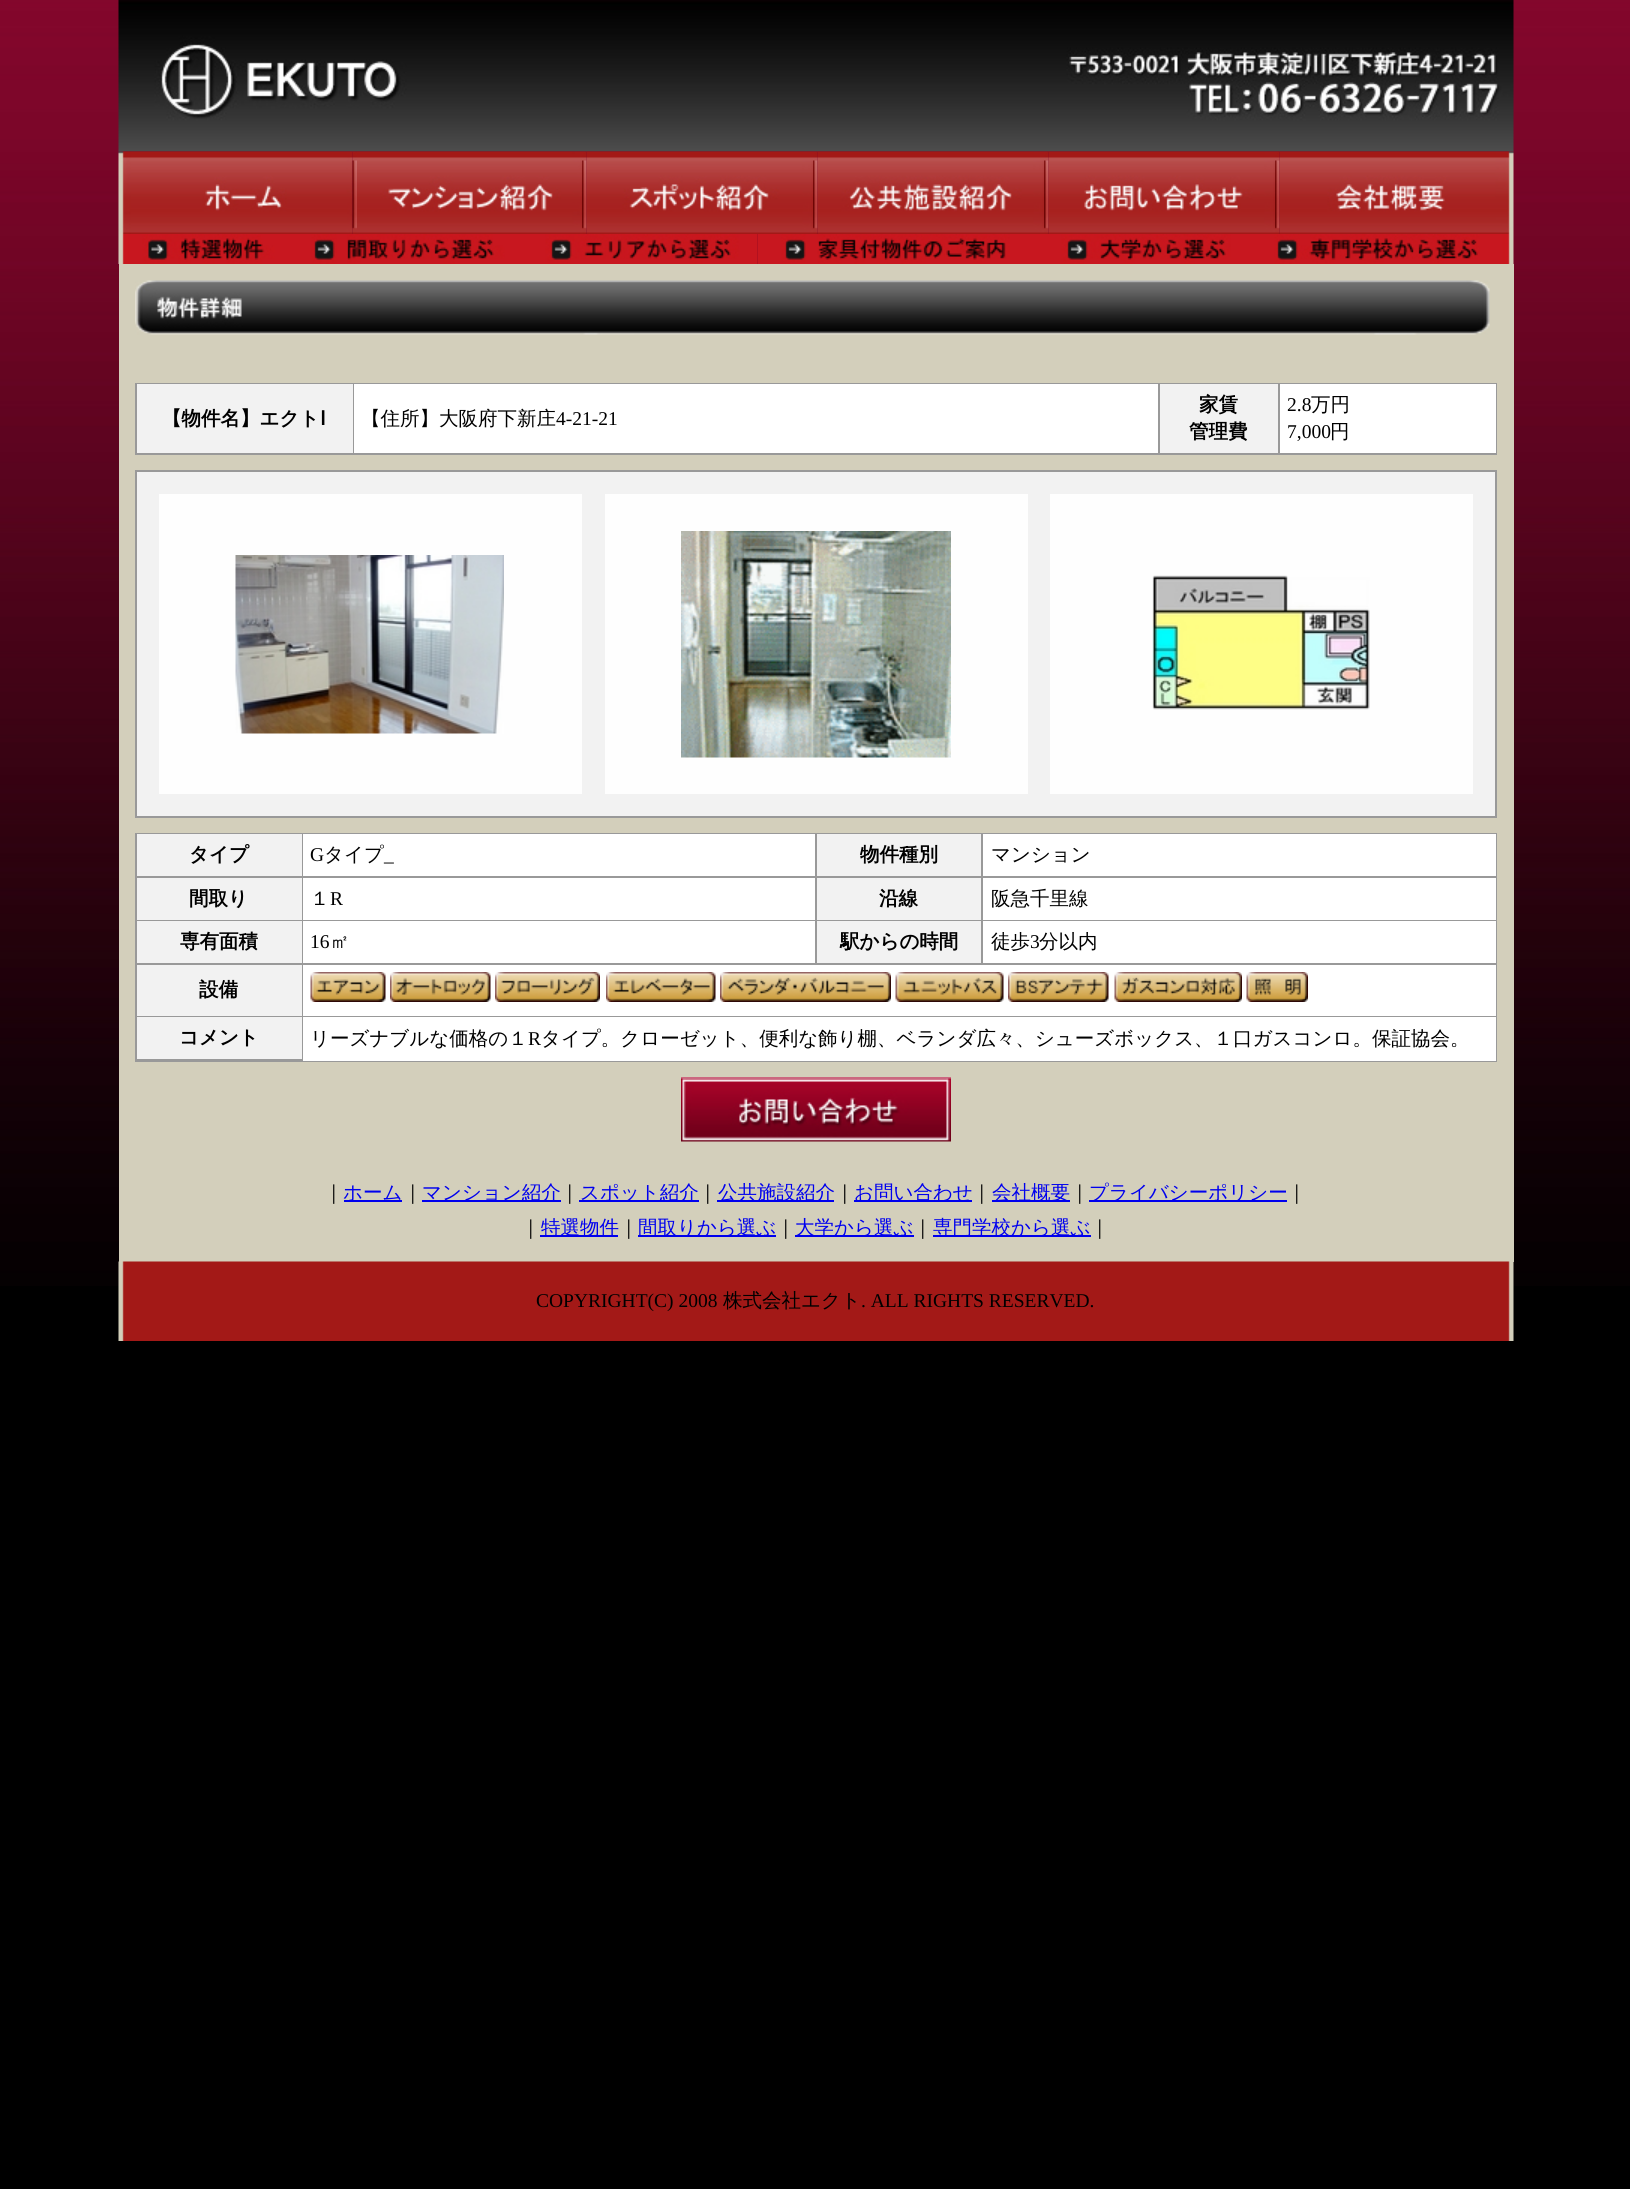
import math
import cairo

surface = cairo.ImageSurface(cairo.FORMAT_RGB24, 1630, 2189)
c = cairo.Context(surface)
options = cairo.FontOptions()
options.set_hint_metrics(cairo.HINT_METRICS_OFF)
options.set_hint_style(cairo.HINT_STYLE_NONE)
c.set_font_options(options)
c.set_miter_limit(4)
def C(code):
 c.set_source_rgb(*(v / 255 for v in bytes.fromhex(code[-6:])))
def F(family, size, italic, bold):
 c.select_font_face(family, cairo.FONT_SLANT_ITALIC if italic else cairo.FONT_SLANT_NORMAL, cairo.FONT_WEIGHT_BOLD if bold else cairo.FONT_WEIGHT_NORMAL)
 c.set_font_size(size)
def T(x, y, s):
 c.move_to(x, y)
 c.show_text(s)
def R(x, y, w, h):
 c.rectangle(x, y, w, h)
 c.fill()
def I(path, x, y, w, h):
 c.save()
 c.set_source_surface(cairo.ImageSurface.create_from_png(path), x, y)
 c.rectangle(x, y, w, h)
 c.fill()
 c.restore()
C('000000')
c.paint()
I('1.png',0,0,1630,1286)
I('2.png',118,0,1396,152)
I('3.png',118,151,235,83)
I('4.png',352,151,5,83)
I('5.png',357,151,225,83)
I('6.png',582,151,5,83)
I('7.png',586,151,227,83)
I('8.png',813,151,5,83)
I('9.png',817,151,227,83)
I('6.png',1044,151,5,83)
I('10.png',1048,151,227,83)
I('6.png',1275,151,5,83)
I('11.png',1279,151,235,83)
I('12.png',118,234,170,30)
I('13.png',288,234,234,30)
I('14.png',522,234,236,30)
I('15.png',757,234,281,30)
I('16.png',1038,234,213,30)
I('17.png',1251,234,263,30)
C('d3cfbb')
R(119,264,1395,998)
I('18.png',135,280,1355,55)
C('999999')
R(135,383,1362,72)
C('f2f2f2')
R(137,384,216,69)
F('WenQuanYi Zen Hei',19.5,0,1)
C('000000')
T(162,425,'【物件名】エクト')
F('DejaVu Sans',19.5,0,1)
T(320,425,'Ⅰ')
C('ffffff')
R(354,384,804,69)
F('WenQuanYi Zen Hei Medium',19.5,0,0)
C('000000')
T(361,425,'【住所】大阪府下新庄')
F('Liberation Serif',19.5,0,0)
T(556,425,'4-21-21')
C('f2f2f2')
R(1160,384,118,69)
F('WenQuanYi Zen Hei',19.5,0,1)
C('000000')
T(1199,411,'家賃')
T(1189,438,'管理費')
C('ffffff')
R(1280,384,216,69)
F('Liberation Serif',19.5,0,0)
C('000000')
T(1287,411,'2.8')
F('WenQuanYi Zen Hei Medium',19.5,0,0)
T(1311,411,'万円')
F('Liberation Serif',19.5,0,0)
T(1287,438,'7,000')
F('WenQuanYi Zen Hei Medium',19.5,0,0)
T(1330,438,'円')
C('f2f2f2')
c.rectangle(136,471,1360,346)
c.fill_preserve()
C('999999')
c.stroke()
C('fefefe')
R(159,494,423,300)
I('19.png',235,555,269,179)
R(605,494,423,300)
I('20.png',681,531,270,227)
R(1050,494,423,300)
I('21.png',1152,575,218,135)
C('999999')
R(135,833,1362,229)
C('f2f2f2')
R(137,834,165,42)
F('WenQuanYi Zen Hei',19.5,0,1)
C('000000')
T(189,861,'タイプ')
C('ffffff')
R(303,834,512,42)
F('Liberation Serif',19.5,0,0)
C('000000')
T(310,861,'G')
F('WenQuanYi Zen Hei Medium',19.5,0,0)
T(324,861,'タイプ')
F('Liberation Serif',19.5,0,0)
T(384,861,'_')
C('f2f2f2')
R(817,834,164,42)
F('WenQuanYi Zen Hei',19.5,0,1)
C('000000')
T(860,861,'物件種別')
C('ffffff')
R(983,834,513,42)
F('WenQuanYi Zen Hei Medium',19.5,0,0)
C('000000')
T(991,861,'マンション')
C('f2f2f2')
R(137,878,165,42)
F('WenQuanYi Zen Hei',19.5,0,1)
C('000000')
T(189,905,'間取り')
C('ffffff')
R(303,878,512,42)
F('WenQuanYi Zen Hei Medium',19.5,0,0)
C('000000')
T(310,905,'１')
F('Liberation Serif',19.5,0,0)
T(330,905,'R')
C('f2f2f2')
R(817,878,164,42)
F('WenQuanYi Zen Hei',19.5,0,1)
C('000000')
T(879,905,'沿線')
C('ffffff')
R(983,878,513,42)
F('WenQuanYi Zen Hei Medium',19.5,0,0)
C('000000')
T(991,905,'阪急千里線')
C('f2f2f2')
R(137,921,165,42)
F('WenQuanYi Zen Hei',19.5,0,1)
C('000000')
T(180,948,'専有面積')
C('ffffff')
R(303,921,512,42)
F('Liberation Serif',19.5,0,0)
C('000000')
T(310,948,'16')
F('WenQuanYi Zen Hei Medium',19.5,0,0)
T(330,948,'㎡')
C('f2f2f2')
R(817,921,164,42)
F('WenQuanYi Zen Hei',19.5,0,1)
C('000000')
T(840,948,'駅からの時間')
C('ffffff')
R(983,921,513,42)
F('WenQuanYi Zen Hei Medium',19.5,0,0)
C('000000')
T(991,948,'徒歩')
F('Liberation Serif',19.5,0,0)
T(1030,948,'3')
F('WenQuanYi Zen Hei Medium',19.5,0,0)
T(1039,948,'分以内')
C('f2f2f2')
R(137,965,165,51)
F('WenQuanYi Zen Hei',19.5,0,1)
C('000000')
T(199,996,'設備')
C('ffffff')
R(303,965,1193,51)
I('22.png',310,972,76,30)
I('23.png',390,972,101,30)
I('24.png',495,972,105,30)
I('25.png',606,972,110,30)
I('26.png',720,972,171,30)
I('27.png',895,972,109,30)
I('28.png',1008,972,101,30)
I('29.png',1114,972,128,30)
I('30.png',1246,972,62,30)
C('f2f2f2')
R(137,1017,165,42)
C('000000')
T(179,1044,'コメント')
C('ffffff')
R(303,1017,1193,44)
F('WenQuanYi Zen Hei Medium',19.5,0,0)
C('000000')
T(310,1045,'リーズナブルな価格の１')
F('Liberation Serif',19.5,0,0)
T(528,1045,'R')
F('WenQuanYi Zen Hei Medium',19.5,0,0)
T(541,1045,'タイプ。クローゼット、便利な飾り棚、ベランダ広々、シューズボックス、１口ガスコンロ。保証協会。')
I('31.png',681,1077,270,65)
T(324,1199,'｜')
C('0000ee')
R(344,1200,58,2)
T(343,1199,'ホーム')
C('000000')
T(403,1199,'｜')
C('0000ee')
R(422,1200,139,2)
T(422,1199,'マンション紹介')
C('000000')
T(560,1199,'｜')
C('0000ee')
R(579,1200,120,2)
T(580,1199,'スポット紹介')
C('000000')
T(698,1199,'｜')
C('0000ee')
R(717,1200,117,2)
T(718,1199,'公共施設紹介')
C('000000')
T(835,1199,'｜')
C('0000ee')
R(854,1200,118,2)
T(854,1199,'お問い合わせ')
C('000000')
T(972,1199,'｜')
C('0000ee')
R(992,1200,78,2)
T(992,1199,'会社概要')
C('000000')
T(1070,1199,'｜')
C('0000ee')
R(1089,1200,198,2)
T(1089,1199,'プライバシーポリシー')
C('000000')
T(1287,1199,'｜')
T(521,1234,'｜')
C('0000ee')
R(540,1235,78,2)
T(541,1234,'特選物件')
C('000000')
T(619,1234,'｜')
C('0000ee')
R(638,1235,138,2)
T(638,1234,'間取りから選ぶ')
C('000000')
T(776,1234,'｜')
C('0000ee')
R(795,1235,119,2)
T(795,1234,'大学から選ぶ')
C('000000')
T(913,1234,'｜')
C('0000ee')
R(933,1235,158,2)
T(933,1234,'専門学校から選ぶ')
C('000000')
T(1090,1234,'｜')
I('32.png',118,1261,1396,80)
F('Liberation Serif',19.5,0,0)
T(536,1307,'COPYRIGHT(C) 2008')
F('WenQuanYi Zen Hei Medium',19.5,0,0)
T(723,1307,'株式会社エクト')
F('Liberation Serif',19.5,0,0)
T(861,1307,'. ALL RIGHTS RESERVED.')
surface.write_to_png('o.png')
